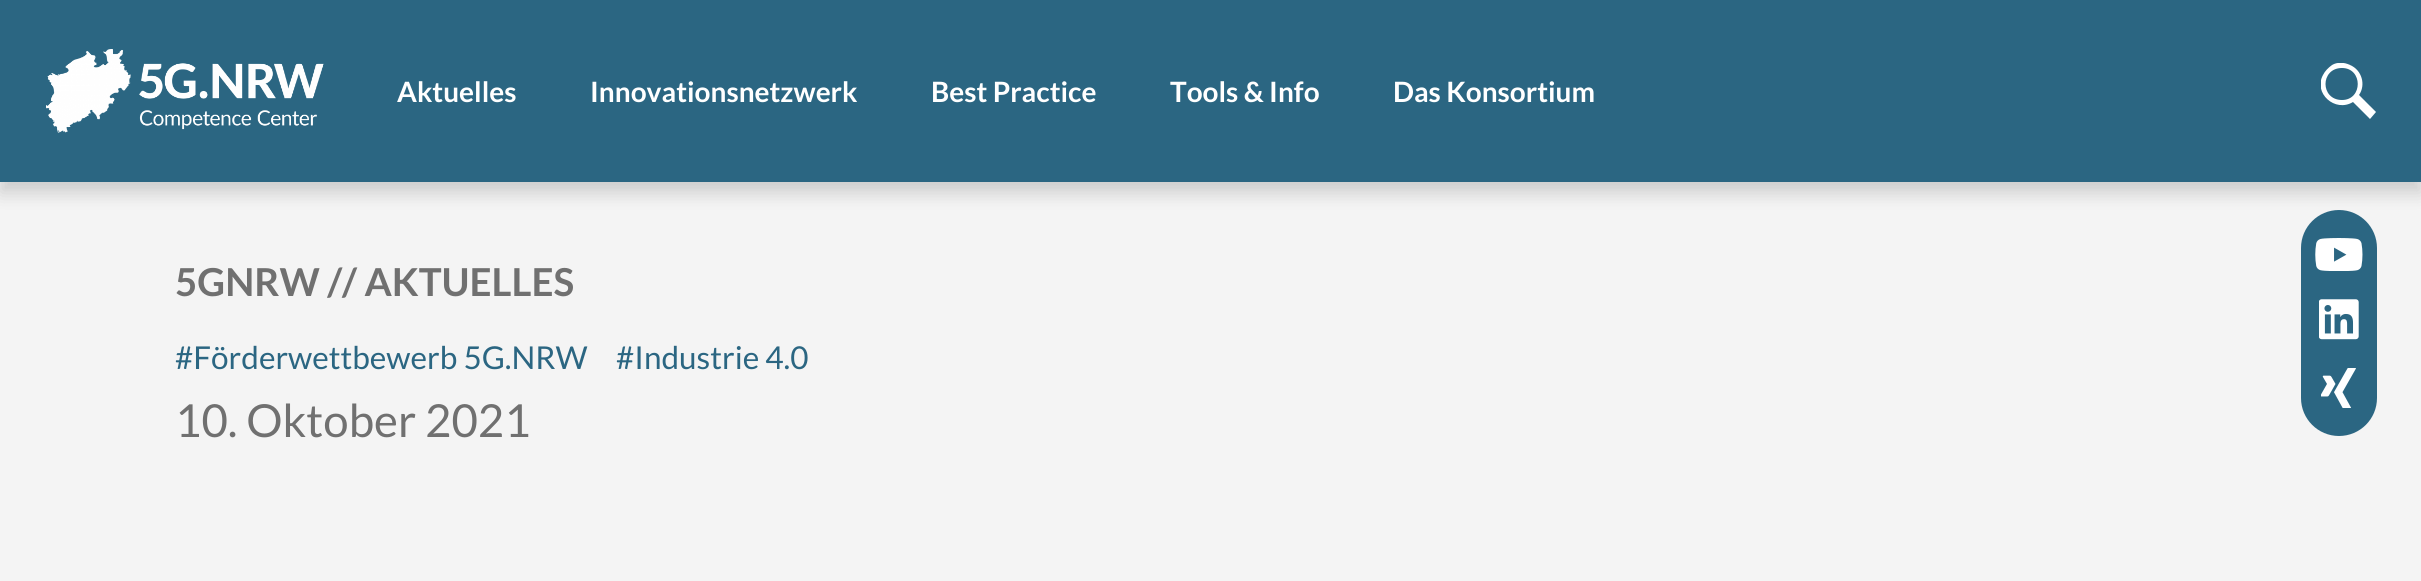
import math
import cairo

surface = cairo.ImageSurface(cairo.FORMAT_RGB24, 2421, 581)
c = cairo.Context(surface)
options = cairo.FontOptions()
options.set_hint_metrics(cairo.HINT_METRICS_OFF)
options.set_hint_style(cairo.HINT_STYLE_NONE)
c.set_font_options(options)
c.set_miter_limit(4)
def C(code):
 c.set_source_rgb(*(v / 255 for v in bytes.fromhex(code[-6:])))
def F(family, size, italic, bold):
 c.select_font_face(family, cairo.FONT_SLANT_ITALIC if italic else cairo.FONT_SLANT_NORMAL, cairo.FONT_WEIGHT_BOLD if bold else cairo.FONT_WEIGHT_NORMAL)
 c.set_font_size(size)
def T(x, y, s):
 c.move_to(x, y)
 c.show_text(s)
def R(x, y, w, h):
 c.rectangle(x, y, w, h)
 c.fill()
def Q(x, y, w, h, r):
 c.new_sub_path()
 for i, (u, v) in enumerate([(x + w - r, y + h - r), (x + r, y + h - r), (x + r, y + r), (x + w - r, y + r)]):
  c.arc(u, v, r, i * math.pi / 2, (i + 1) * math.pi / 2)
 c.close_path()
def S(x, y, w, h, r, blur, alpha):
 c.push_group_with_content(cairo.CONTENT_ALPHA)
 c.set_operator(cairo.OPERATOR_SOURCE)
 for i in range(15, -16, -2):
  e = blur * i / 6
  if min(w, h) + 2 * e > 0:
   c.set_source_rgba(0, 0, 0, alpha * math.erfc((i - 1) / 8.5) / 2)
   Q(x - e, y - e, w + 2 * e, h + 2 * e, max(0, min(r + e + blur * .6, min(w, h) / 2 + e)))
   c.fill()
 c.mask(c.pop_group())
def I(path, x, y, w, h):
 c.save()
 c.set_source_surface(cairo.ImageSurface.create_from_png(path), x, y)
 c.rectangle(x, y, w, h)
 c.fill()
 c.restore()
C('f4f4f4')
c.paint()
C('000000')
S(0,11,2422,182,0,9,.16)
C('2b6682')
R(0,0,2421,182)
I('1.png',46,49,278,84)
F('Lato',28,0,1)
C('ffffff')
T(397,102,'Aktuelles')
T(590,102,'Innovationsnetzwerk')
T(931,102,'Best Practice')
T(1170,102,'Tools & Info')
T(1393,102,'Das Konsortium')
c.save()
c.rectangle(2321,63,56,56)
c.clip()
c.new_path()
c.move_to(2370,119)
c.line_to(2353,102)
c.curve_to(2335,113,2313,93,2323,75)
c.curve_to(2325,71,2328,68,2332,65)
c.curve_to(2337,62,2344,62,2350,65)
c.curve_to(2362,70,2366,85,2359,95)
c.line_to(2376,112)
c.close_path()
c.move_to(2342,100)
c.curve_to(2363,100,2363,68,2342,68)
c.curve_to(2320,68,2320,100,2342,100)
c.fill()
c.restore()
C('2b6682')
Q(2301,210,76,226,38)
c.fill()
I('2.png',2315,238,48,33)
I('3.png',2319,299,40,41)
I('4.png',2321,368,35,40)
F('Lato',38.5,0,1)
C('707070')
T(175,296,'5GNRW // AKTUELLES')
F('Lato',31.5,0,0)
C('2b6682')
T(175,369,'#Förderwettbewerb 5G.NRW')
T(616,369,'#Industrie 4.0')
F('Lato',45.5,0,0)
C('707070')
T(175,437,'10. Oktober 2021')
surface.write_to_png('o.png')
